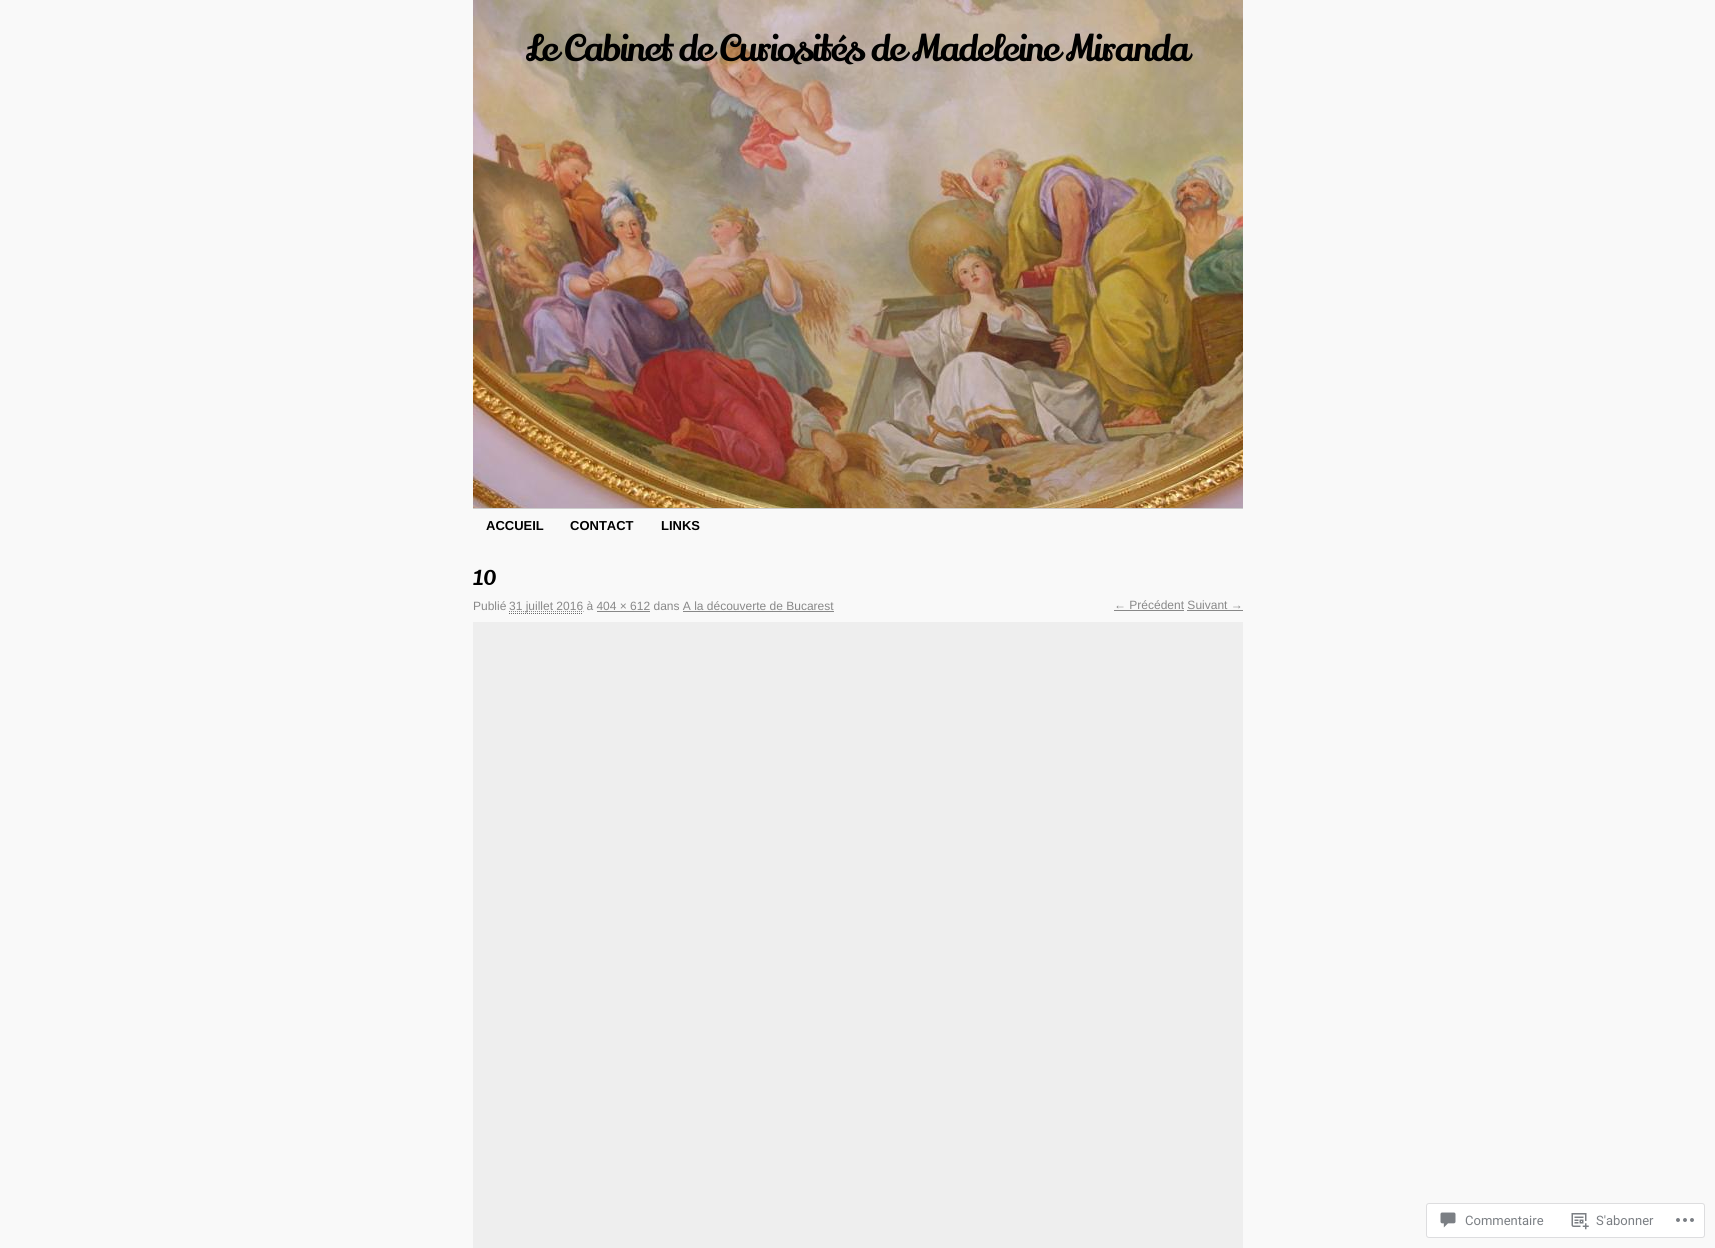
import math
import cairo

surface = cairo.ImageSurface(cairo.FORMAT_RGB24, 1715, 1248)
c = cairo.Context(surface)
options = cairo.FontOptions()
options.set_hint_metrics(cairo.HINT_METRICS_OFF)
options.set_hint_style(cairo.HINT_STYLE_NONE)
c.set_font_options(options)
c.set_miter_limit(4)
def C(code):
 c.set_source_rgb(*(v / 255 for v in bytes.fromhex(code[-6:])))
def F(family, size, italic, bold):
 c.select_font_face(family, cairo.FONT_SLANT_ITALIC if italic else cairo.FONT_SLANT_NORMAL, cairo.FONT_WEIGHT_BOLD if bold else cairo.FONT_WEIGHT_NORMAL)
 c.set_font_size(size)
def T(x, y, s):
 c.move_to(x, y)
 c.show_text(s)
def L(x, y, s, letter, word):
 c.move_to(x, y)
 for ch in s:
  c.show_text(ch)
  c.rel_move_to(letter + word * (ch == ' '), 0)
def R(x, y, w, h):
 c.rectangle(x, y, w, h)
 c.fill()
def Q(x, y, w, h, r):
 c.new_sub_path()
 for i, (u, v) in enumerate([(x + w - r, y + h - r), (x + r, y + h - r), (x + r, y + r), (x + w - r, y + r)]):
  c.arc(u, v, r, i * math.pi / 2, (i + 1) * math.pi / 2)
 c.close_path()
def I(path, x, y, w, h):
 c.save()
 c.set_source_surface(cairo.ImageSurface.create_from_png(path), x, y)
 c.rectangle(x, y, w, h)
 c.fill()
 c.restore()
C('f9f9f9')
c.paint()
I('1.png',473,0,770,508)
F('Lily Script One',36,0,0)
C('000000')
L(526,61,'Le Cabinet de Curiosités de Madeleine Miranda',-1.1,0)
C('cccccc')
R(473,508,770,1)
F('Liberation Sans',13,0,1)
C('000000')
T(486,530,'ACCUEIL')
T(570,530,'CONTACT')
T(661,530,'LINKS')
F('Lily Script One',20,0,0)
T(473,585,'10')
F('Liberation Sans',12,0,0)
C('888888')
T(473,610,'Publié')
c.new_path()
c.move_to(509,611.5)
c.line_to(583.5,611.5)
c.set_line_width(1)
c.set_dash([1,1])
c.stroke()
T(509,610,'31 juillet 2016 à 404 × 612 dans A la découverte de Bucarest')
c.new_path()
c.move_to(509,613.5)
c.line_to(583,613.5)
C('666666')
c.stroke()
C('888888')
R(597,611,53,1)
R(683,611,151,1)
T(1114,609,'← Précédent Suivant →')
R(1114,610,70,1)
R(1187,610,56,1)
C('eeeeee')
R(473,622,770,626)
C('ffffff')
Q(1426.5,1203.5,278,34,2.5)
c.fill_preserve()
C('dddddf')
c.set_dash([])
c.stroke()
I('2.png',1440,1212,16,16)
F('Roboto',13,0,0)
C('7b7f84')
T(1465,1225,'Commentaire')
I('3.png',1571,1213,18,17)
T(1596,1225,'S\'abonner')
I('4.png',1676,1218,18,4)
surface.write_to_png('o.png')
